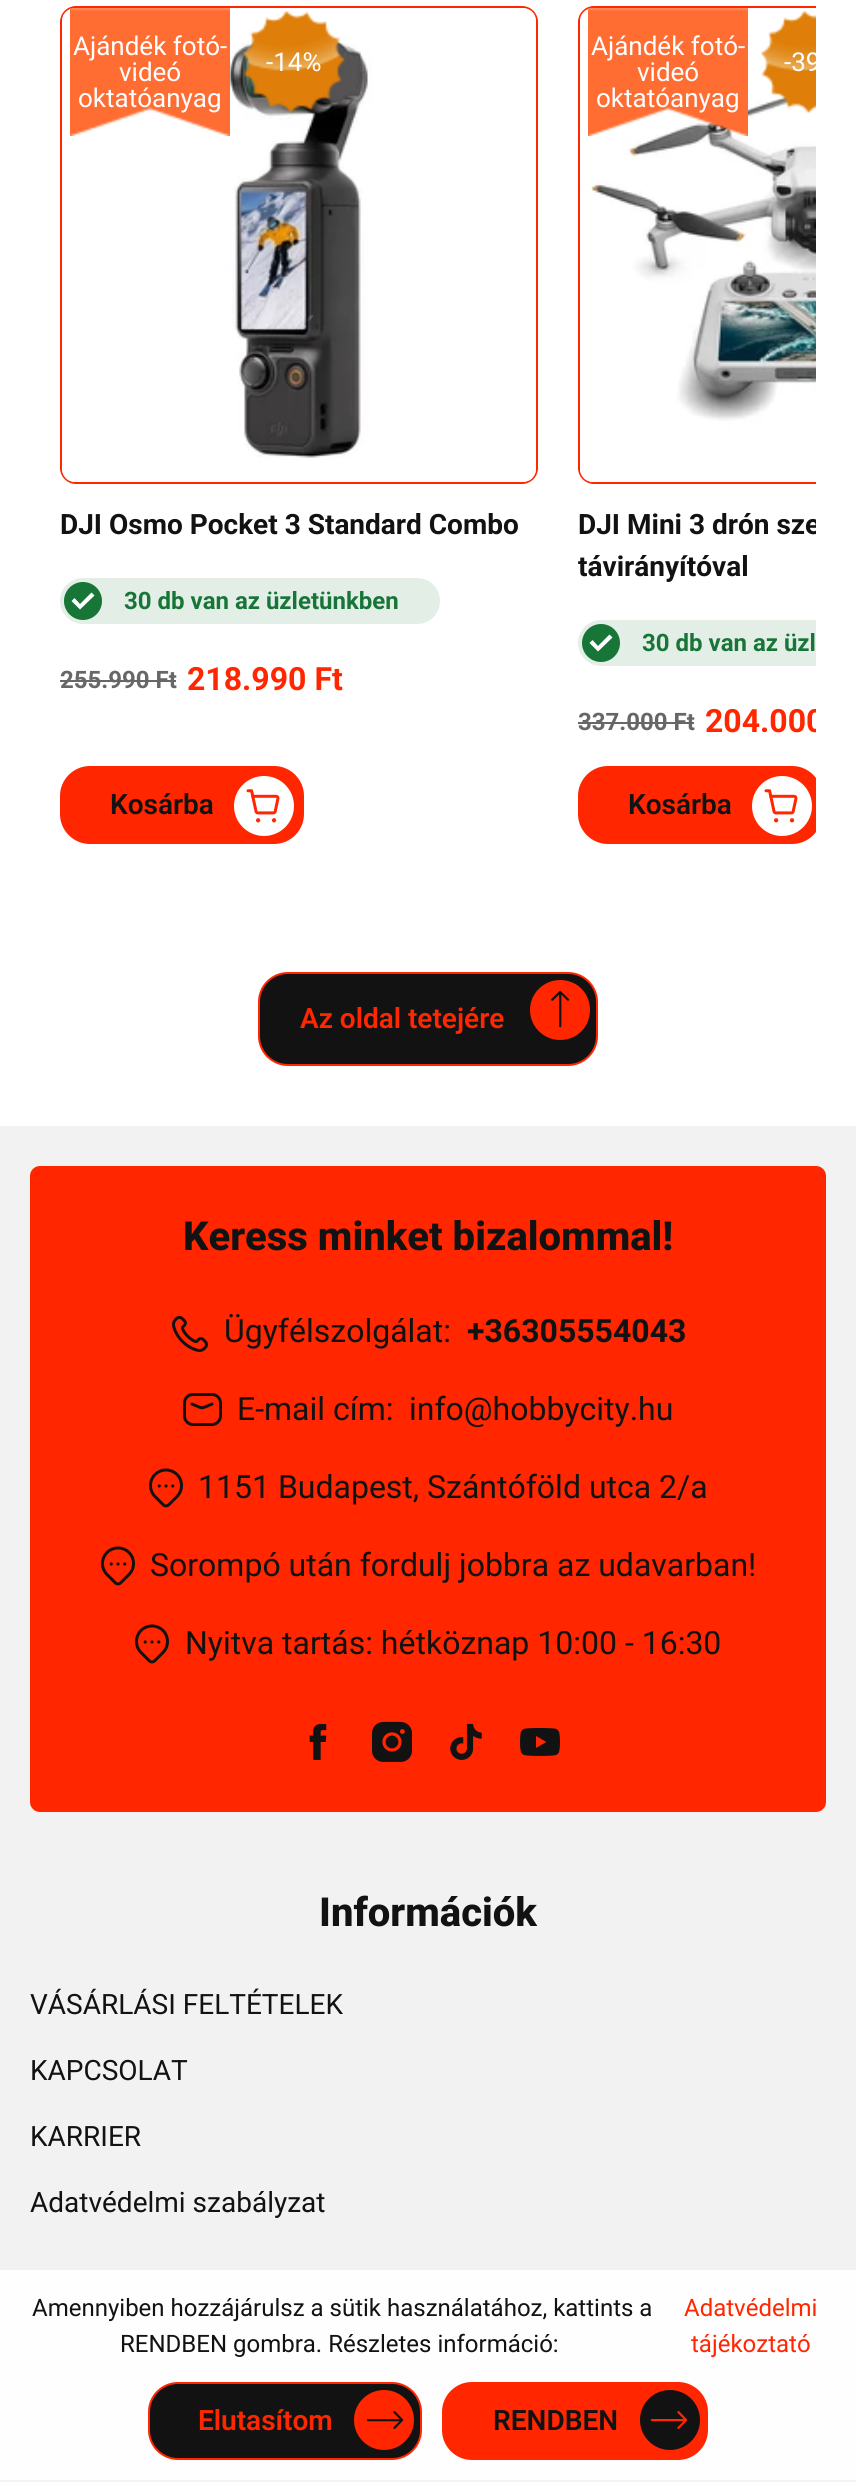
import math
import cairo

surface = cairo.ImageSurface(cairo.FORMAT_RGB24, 856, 2482)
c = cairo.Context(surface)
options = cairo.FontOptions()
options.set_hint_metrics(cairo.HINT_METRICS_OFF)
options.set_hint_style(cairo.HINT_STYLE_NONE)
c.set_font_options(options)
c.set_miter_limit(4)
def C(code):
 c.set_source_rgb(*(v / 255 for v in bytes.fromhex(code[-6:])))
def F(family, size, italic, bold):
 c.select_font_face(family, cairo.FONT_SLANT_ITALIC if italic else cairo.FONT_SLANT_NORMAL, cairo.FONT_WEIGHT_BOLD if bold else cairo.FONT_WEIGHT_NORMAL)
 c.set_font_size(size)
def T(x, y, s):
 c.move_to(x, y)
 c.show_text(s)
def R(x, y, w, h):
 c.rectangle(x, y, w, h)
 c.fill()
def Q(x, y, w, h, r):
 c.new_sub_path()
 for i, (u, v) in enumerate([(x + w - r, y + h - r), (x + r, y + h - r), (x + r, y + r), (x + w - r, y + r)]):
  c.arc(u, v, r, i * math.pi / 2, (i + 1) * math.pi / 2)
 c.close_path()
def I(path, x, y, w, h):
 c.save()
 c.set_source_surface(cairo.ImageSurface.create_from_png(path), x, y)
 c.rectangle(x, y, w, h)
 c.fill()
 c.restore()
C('ffffff')
c.paint()
Q(61,7,476,476,15)
C('ff2600')
c.stroke()
I('1.png',62,8,474,474)
I('2.png',70,8,160,128)
F('Roboto',26,0,0)
C('ffffff')
T(73,55,'Ajándék fotó-')
T(119,81,'videó')
T(78,107,'oktatóanyag')
I('3.png',243,10,103,104)
T(266,71,'-14%')
F('Roboto',28,0,1)
C('121212')
T(60,534,'DJI Osmo Pocket 3 Standard Combo')
C('e2eee6')
Q(60,578,380,46,23)
c.fill()
C('177537')
c.arc(83,601,19,0,2 * math.pi)
c.fill()
C('ffffff')
c.new_path()
c.move_to(80,604)
c.line_to(74.5,598)
c.line_to(71.5,601)
c.line_to(80,609.5)
c.line_to(94.5,595.5)
c.line_to(91.5,592.5)
c.close_path()
c.fill()
F('Roboto',24,0,1)
C('177537')
T(124,609,'30 db van az üzletünkben')
C('676767')
T(60,688,'255.990 Ft')
R(60,680,116,2)
F('Roboto',32,0,1)
C('ff2600')
T(187,690,'218.990 Ft')
Q(61,767,242,76,29)
c.fill_preserve()
c.stroke()
F('Roboto SemiBold',28,0,0)
C('121212')
T(110,814,'Kosárba')
I('4.png',234,776,60,60)
c.save()
c.rectangle(40,0,776,852)
c.clip()
Q(579,7,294,476,15)
C('ff2600')
c.stroke()
c.restore()
I('5.png',580,8,236,474)
I('6.png',588,8,160,128)
F('Roboto',26,0,0)
C('ffffff')
T(591,55,'Ajándék fotó-')
T(637,81,'videó')
T(596,107,'oktatóanyag')
I('7.png',760,10,56,104)
c.save()
c.rectangle(40,0,776,852)
c.clip()
T(784,71,'-39')
F('Roboto',28,0,1)
C('121212')
T(578,534,'DJI Mini 3 drón sze')
c.restore()
F('Roboto',28,0,1)
C('121212')
T(578,576,'távirányítóval')
C('e2eee6')
c.new_path()
c.move_to(601,620)
c.line_to(816,620)
c.line_to(816,666)
c.line_to(601,666)
c.curve_to(588.5,666,578,655.5,578,643)
c.curve_to(578,630.5,588.5,620,601,620)
c.close_path()
c.fill()
C('177537')
c.arc(601,643,19,0,2 * math.pi)
c.fill()
C('ffffff')
c.new_path()
c.move_to(598,646)
c.line_to(592.5,640)
c.line_to(589.5,643)
c.line_to(598,651.5)
c.line_to(612.5,637.5)
c.line_to(609.5,634.5)
c.close_path()
c.fill()
F('Roboto',24,0,1)
C('177537')
T(642,651,'30 db van az üzl')
C('676767')
T(578,730,'337.000 Ft')
R(578,722,116,2)
c.save()
c.rectangle(40,0,776,852)
c.clip()
F('Roboto',32,0,1)
C('ff2600')
T(705,732,'204.000')
Q(579,767,242,76,29)
c.fill_preserve()
c.stroke()
c.restore()
F('Roboto SemiBold',28,0,0)
C('121212')
T(628,814,'Kosárba')
I('4.png',752,776,60,60)
Q(259,973,338,92,29)
c.fill_preserve()
C('ff2600')
c.stroke()
T(300,1028,'Az oldal tetejére')
c.new_path()
c.move_to(530,1010)
c.curve_to(530,993,544,980,560,980)
c.curve_to(577,980,590,993,590,1010)
c.curve_to(590,1027,577,1040,560,1040)
c.curve_to(544,1040,530,1027,530,1010)
c.close_path()
c.fill()
I('8.png',551,991,19,37)
C('f2f2f2')
R(0,1126,856,1354)
C('ff2600')
Q(30,1166,796,646,10)
c.fill()
F('Roboto ExtraBold',40,0,0)
C('121212')
T(183,1250,'Keress minket bizalommal!')
I('9.png',172,1315,36,37)
F('Roboto',32,0,0)
T(224,1342,'Ügyfélszolgálat:')
F('Roboto',32,0,1)
T(467,1342,'+36305554043')
Q(184.5,1394.5,36,30,8.5)
c.set_line_width(3)
c.stroke()
c.new_path()
c.move_to(192,1404)
c.curve_to(204,1409,200,1409,212,1404)
c.set_line_cap(cairo.LINE_CAP_ROUND)
c.set_line_join(cairo.LINE_JOIN_ROUND)
c.stroke()
F('Roboto',32,0,0)
T(237,1420,'E-mail cím:')
T(409,1420,'info@hobbycity.hu')
I('10.png',148,1468,35,40)
T(198,1498,'1151 Budapest, Szántóföld utca 2/a')
I('10.png',100,1546,35,40)
T(150,1576,'Sorompó után fordulj jobbra az udavarban!')
I('10.png',134,1624,35,40)
T(185,1654,'Nyitva tartás: hétköznap 10:00 - 16:30')
I('11.png',309,1723,18,37)
I('12.png',372,1721,40,41)
I('13.png',450,1723,32,37)
I('14.png',520,1727,40,29)
F('Roboto ExtraBold',40,0,0)
T(319,1926,'Információk')
F('Roboto',28,0,0)
T(30,2014,'VÁSÁRLÁSI FELTÉTELEK')
T(30,2080,'KAPCSOLAT')
T(30,2146,'KARRIER')
T(30,2212,'Adatvédelmi szabályzat')
c.set_source_rgba(1,1,1,0.9)
R(0,2270,856,210)
C('f3f3f3')
R(0,2480,856,2)
F('Roboto',24,0,0)
C('121212')
T(32,2316,'Amennyiben hozzájárulsz a sütik használatához, kattints a')
C('ff2600')
T(684,2316,'Adatvédelmi')
T(691,2352,'tájékoztató')
C('121212')
T(120,2352,'RENDBEN gombra. Részletes információ:')
Q(149,2383,272,76,29)
c.fill_preserve()
C('ff2600')
c.set_line_width(2)
c.set_line_cap(cairo.LINE_CAP_BUTT)
c.set_line_join(cairo.LINE_JOIN_MITER)
c.stroke()
F('Roboto SemiBold',28,0,0)
T(198,2430,'Elutasítom')
c.new_path()
c.arc(384,2420,30,0,2 * math.pi)
c.fill()
I('15.png',366,2411,38,18)
Q(443,2383,264,76,29)
c.fill_preserve()
c.stroke()
C('121212')
T(493,2430,'RENDBEN')
c.new_path()
c.arc(670,2420,30,0,2 * math.pi)
c.fill()
I('16.png',650,2411,38,18)
surface.write_to_png('o.png')
